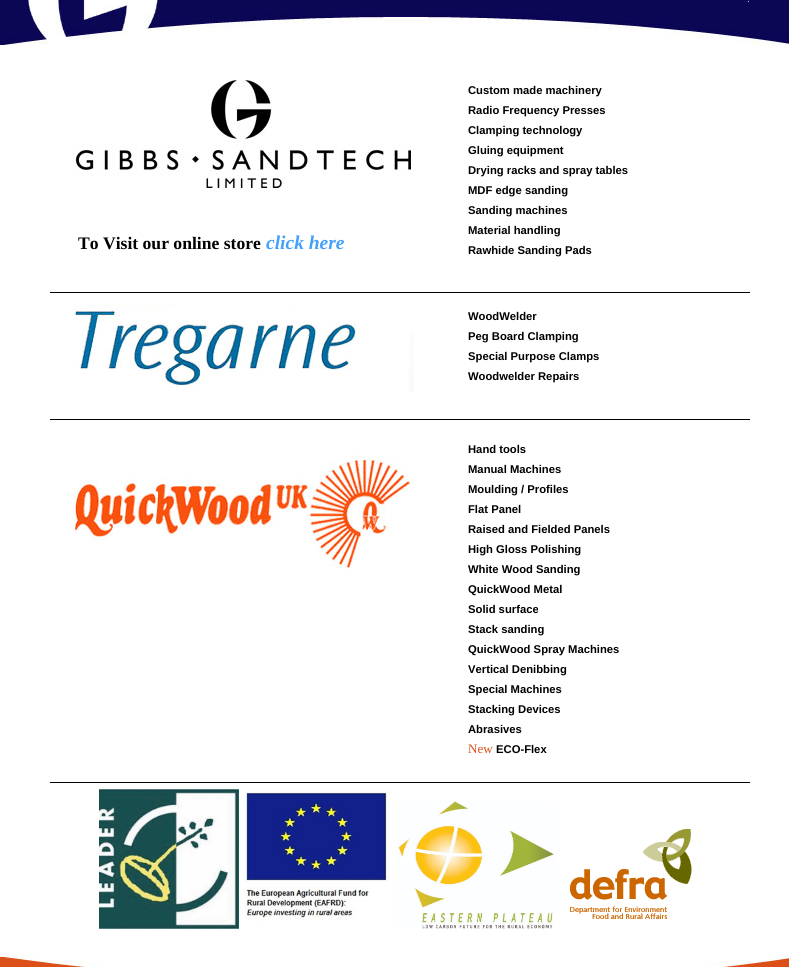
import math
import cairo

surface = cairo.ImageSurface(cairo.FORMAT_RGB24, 789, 967)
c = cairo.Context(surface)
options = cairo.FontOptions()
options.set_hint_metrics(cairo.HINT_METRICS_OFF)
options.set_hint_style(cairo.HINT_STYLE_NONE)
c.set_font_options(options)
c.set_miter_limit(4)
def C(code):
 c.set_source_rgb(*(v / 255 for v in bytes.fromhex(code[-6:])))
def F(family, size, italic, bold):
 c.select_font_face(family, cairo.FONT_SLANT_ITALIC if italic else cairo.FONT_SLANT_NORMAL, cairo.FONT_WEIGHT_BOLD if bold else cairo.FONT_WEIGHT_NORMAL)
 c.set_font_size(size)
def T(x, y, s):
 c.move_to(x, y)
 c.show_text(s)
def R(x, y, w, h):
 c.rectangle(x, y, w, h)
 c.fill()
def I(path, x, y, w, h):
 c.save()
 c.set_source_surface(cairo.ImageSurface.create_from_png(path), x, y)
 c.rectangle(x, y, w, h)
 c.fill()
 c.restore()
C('ffffff')
c.paint()
I('1.png',0,0,789,49)
F('Liberation Sans',10,0,0)
C('d9d9d9')
T(747,2,'.')
I('2.png',74,80,337,112)
F('Liberation Serif',17.6,0,1)
C('000000')
T(78,249,'To Visit our online store')
F('Liberation Serif',19.5,1,1)
C('44a0fa')
T(266,249,'click here')
F('Liberation Sans',11.25,0,1)
C('000000')
T(468,94,'Custom made machinery')
T(468,114,'Radio Frequency Presses')
T(468,134,'Clamping technology')
T(468,154,'Gluing equipment')
T(468,174,'Drying racks and spray tables')
T(468,194,'MDF edge sanding')
T(468,214,'Sanding machines')
T(468,234,'Material handling')
T(468,254,'Rawhide Sanding Pads')
R(50,292,700,1)
I('3.png',73,303,341,89)
T(468,320,'WoodWelder')
T(468,340,'Peg Board Clamping')
T(468,360,'Special Purpose Clamps')
T(468,380,'Woodwelder Repairs')
R(50,419,700,1)
I('4.png',73,455,341,120)
T(468,453,'Hand tools')
T(468,473,'Manual Machines')
T(468,493,'Moulding / Profiles')
T(468,513,'Flat Panel')
T(468,533,'Raised and Fielded Panels')
T(468,553,'High Gloss Polishing')
T(468,573,'White Wood Sanding')
T(468,593,'QuickWood Metal')
T(468,613,'Solid surface')
T(468,633,'Stack sanding')
T(468,653,'QuickWood Spray Machines')
T(468,673,'Vertical Denibbing')
T(468,693,'Special Machines')
T(468,713,'Stacking Devices')
T(468,733,'Abrasives')
F('Liberation Serif',13,0,0)
C('db4f18')
T(468,753,'New')
F('Liberation Sans',11.25,0,1)
C('000000')
T(496,753,'ECO-Flex')
R(50,782,700,1)
I('5.png',99,789,140,140)
I('6.png',244,789,146,132)
I('7.png',397,801,158,128)
I('8.png',570,829,122,90)
I('9.png',0,953,789,14)
surface.write_to_png('o.png')
